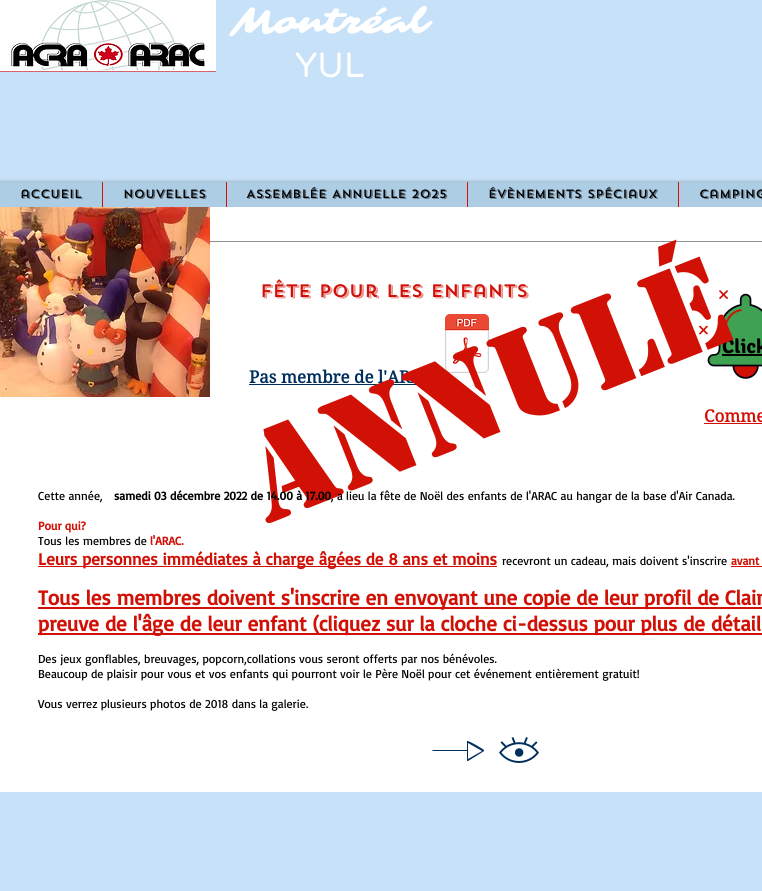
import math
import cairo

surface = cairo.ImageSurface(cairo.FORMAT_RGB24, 762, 891)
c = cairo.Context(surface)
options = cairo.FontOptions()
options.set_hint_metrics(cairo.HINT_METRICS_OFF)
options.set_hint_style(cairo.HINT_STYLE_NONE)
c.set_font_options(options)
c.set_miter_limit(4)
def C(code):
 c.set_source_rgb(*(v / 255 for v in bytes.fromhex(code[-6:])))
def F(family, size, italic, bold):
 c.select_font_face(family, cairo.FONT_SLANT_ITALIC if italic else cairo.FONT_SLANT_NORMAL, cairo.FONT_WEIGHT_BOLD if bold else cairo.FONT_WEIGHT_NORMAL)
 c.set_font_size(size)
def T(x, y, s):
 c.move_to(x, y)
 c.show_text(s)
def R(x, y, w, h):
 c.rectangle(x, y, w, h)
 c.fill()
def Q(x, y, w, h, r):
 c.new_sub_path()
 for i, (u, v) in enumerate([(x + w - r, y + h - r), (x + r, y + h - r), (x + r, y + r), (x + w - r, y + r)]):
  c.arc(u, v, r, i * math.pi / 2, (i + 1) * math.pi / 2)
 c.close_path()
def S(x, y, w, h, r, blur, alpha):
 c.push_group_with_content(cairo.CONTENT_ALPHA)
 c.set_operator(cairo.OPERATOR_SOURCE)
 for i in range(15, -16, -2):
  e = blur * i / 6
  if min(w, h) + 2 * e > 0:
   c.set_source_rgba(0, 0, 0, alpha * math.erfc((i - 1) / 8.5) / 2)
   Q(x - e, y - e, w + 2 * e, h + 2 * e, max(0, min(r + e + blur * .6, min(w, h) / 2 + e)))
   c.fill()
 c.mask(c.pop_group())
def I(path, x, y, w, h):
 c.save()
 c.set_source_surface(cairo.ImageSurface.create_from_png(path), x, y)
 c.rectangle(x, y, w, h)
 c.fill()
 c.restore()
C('c7e2f8')
c.paint()
I('1.png',0,0,216,72)
F('Sarina',35,0,0)
C('ffffff')
T(231,33,'Montréal')
F('Varela Round',35,0,0)
T(295,77,'YUL')
C('000000')
S(0,183,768,25,0,2,.6)
C('adcde5')
R(0,182,762,25)
F('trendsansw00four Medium',12,0,0)
C('000000')
T(20,198,'accueil')
C('d11006')
R(102,182,1,25)
C('000000')
T(123,198,'Nouvelles')
C('d11006')
R(226,182,1,25)
C('000000')
T(246,198,'Assemblée Annuelle 2025')
C('d11006')
R(467,182,1,25)
C('000000')
T(488,198,'Évènements spéciaux')
C('d11006')
R(678,182,1,25)
C('000000')
T(699,198,'camping')
C('ffffff')
R(0,207,762,585)
I('2.png',0,207,210,190)
C('909090')
R(210,241,552,1)
F('trendsansw00four Medium',18,0,0)
C('d11006')
T(260,297,'Fête pour les enfants')
I('3.png',699,290,63,89)
I('4.png',445,314,44,59)
F('Signika',20,0,1)
C('000000')
T(722,353,'Click')
R(722,354,40,2)
F('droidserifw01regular',17,0,1)
C('002e5d')
T(249,383,'Pas membre de l\'ARAC?')
R(249,384,192,1)
C('d11006')
T(704,422,'Comme')
R(704,423,58,1)
F('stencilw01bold',120,0,1)
c.save()
c.translate(268,524)
c.rotate(-21.6 * math.pi / 180)
T(0,0,'Annulé')
c.restore()
F('Basic',12,0,0)
C('000000')
T(38,500,'Cette année,')
F('Basic',12,0,1)
T(114,500,'samedi 03 décembre 2022 de 14.00 à 17.00')
F('Basic',12,0,0)
T(331,500,', a lieu la fête de Noël des enfants de l\'ARAC au hangar de la base d\'Air Canada.')
F('Basic',12,0,1)
C('d11006')
T(38,530,'Pour qui?')
F('Basic',12,0,0)
C('000000')
T(38,545,'Tous les membres de')
F('Basic',12,0,1)
C('d11006')
T(150,545,'l\'ARAC.')
R(38,566,459,1)
F('Basic',17,0,1)
T(38,565,'Leurs personnes immédiates à charge âgées de 8 ans et moins')
F('Basic',12,0,0)
C('000000')
T(502,565,'recevront un cadeau, mais doivent s\'inscrire')
F('Basic',12,0,1)
C('d11006')
T(731,565,'avant')
R(731,566,31,1)
R(38,607,724,2)
F('Basic',21,0,1)
T(38,605,'Tous les membres doivent s\'inscrire en envoyant une copie de leur profil de Claim')
R(38,633,724,2)
T(38,631,'preuve de l\'âge de leur enfant (cliquez sur la cloche ci-dessus pour plus de détail')
F('Basic',12,0,0)
C('000000')
T(38,663,'Des jeux gonflables, breuvages, popcorn,collations vous seront offerts par nos bénévoles.')
T(38,678,'Beaucoup de plaisir pour vous et vos enfants qui pourront voir le Père Noël pour cet événement entièrement gratuit!')
T(38,708,'Vous verrez plusieurs photos de 2018 dans la galerie.')
C('002e5d')
c.new_path()
c.move_to(433,751)
c.line_to(467,751)
c.line_to(467,761)
c.line_to(468,761)
c.curve_to(470,760,484,751,484,751)
c.line_to(484,750)
c.curve_to(483,749,468,740,467,741)
c.line_to(467,750)
c.line_to(433,750)
c.curve_to(432,750,432,751,433,751)
c.close_path()
c.move_to(468,743)
c.line_to(482,751)
c.line_to(468,759)
c.close_path()
c.fill()
I('5.png',499,737,40,26)
surface.write_to_png('o.png')
